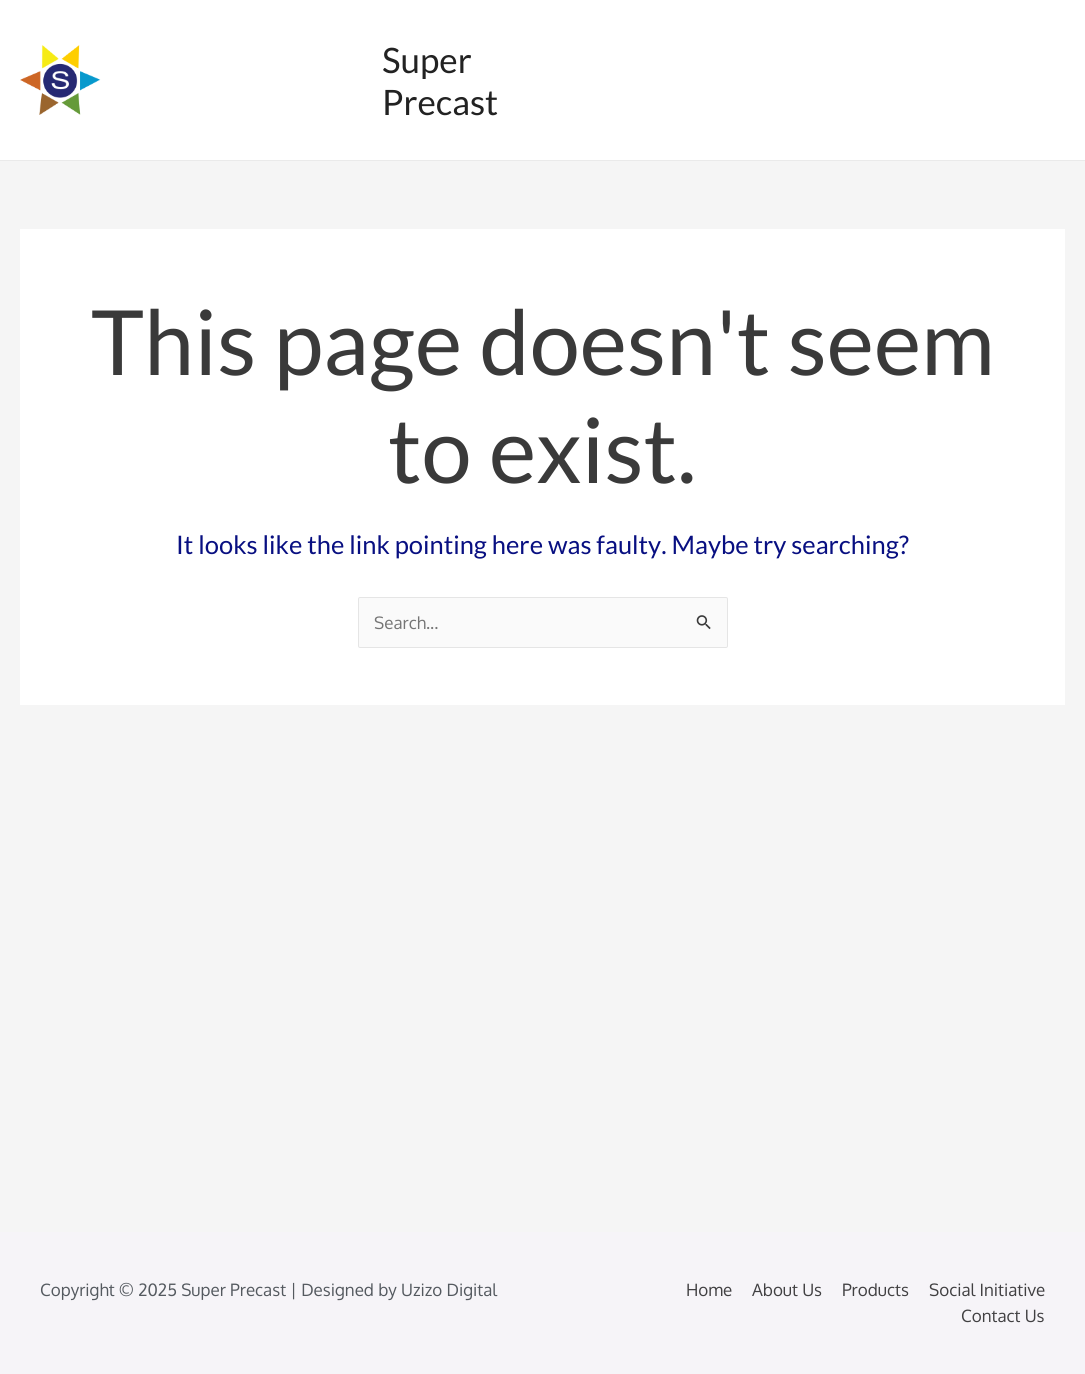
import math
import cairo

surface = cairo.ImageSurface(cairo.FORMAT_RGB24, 1085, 1374)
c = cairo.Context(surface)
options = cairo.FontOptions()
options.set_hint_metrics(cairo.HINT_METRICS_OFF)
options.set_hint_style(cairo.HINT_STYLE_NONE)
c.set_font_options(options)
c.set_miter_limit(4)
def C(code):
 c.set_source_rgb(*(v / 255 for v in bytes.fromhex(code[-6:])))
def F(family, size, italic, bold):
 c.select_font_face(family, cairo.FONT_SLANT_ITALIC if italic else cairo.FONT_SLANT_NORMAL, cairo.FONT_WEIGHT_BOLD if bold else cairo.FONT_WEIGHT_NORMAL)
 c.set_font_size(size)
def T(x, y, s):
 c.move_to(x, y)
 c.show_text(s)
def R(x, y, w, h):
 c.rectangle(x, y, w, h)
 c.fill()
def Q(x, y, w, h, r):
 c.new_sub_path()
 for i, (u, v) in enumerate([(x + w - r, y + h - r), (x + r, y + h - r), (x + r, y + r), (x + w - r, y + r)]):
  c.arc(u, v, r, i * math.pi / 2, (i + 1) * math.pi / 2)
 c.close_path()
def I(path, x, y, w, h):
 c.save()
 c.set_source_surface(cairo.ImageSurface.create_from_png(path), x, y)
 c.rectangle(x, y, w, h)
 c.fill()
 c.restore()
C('f5f5f5')
c.paint()
C('ffffff')
R(0,0,1085,160)
C('eaeaea')
R(0,160,1085,1)
I('1.png',20,45,81,70)
F('Lato',35,0,0)
C('222222')
T(382,73,'Super')
T(382,115,'Precast')
C('ffffff')
R(20,229,1045,476)
F('Lato',90,0,0)
C('3a3a3a')
T(91,375,'This page doesn\'t seem')
T(388,483,'to exist.')
F('Lato',25.5,0,0)
C('080f81')
T(176,554,'It looks like the link pointing here was faulty. Maybe try searching?')
C('fafafa')
Q(358.5,597.5,369,50,1.5)
c.fill_preserve()
C('e5e5e5')
c.set_line_width(1)
c.stroke()
F('Oxygen',17,0,0)
C('757575')
T(374,629,'Search...')
I('2.png',696,615,15,15)
C('f6f4f8')
R(0,1232,1085,142)
C('54595f')
T(40,1296,'Copyright © 2025 Super Precast | Designed by Uzizo Digital')
C('414042')
T(686,1296,'Home')
T(752,1296,'About Us')
T(842,1296,'Products')
T(929,1296,'Social Initiative')
T(961,1322,'Contact Us')
surface.write_to_png('o.png')
